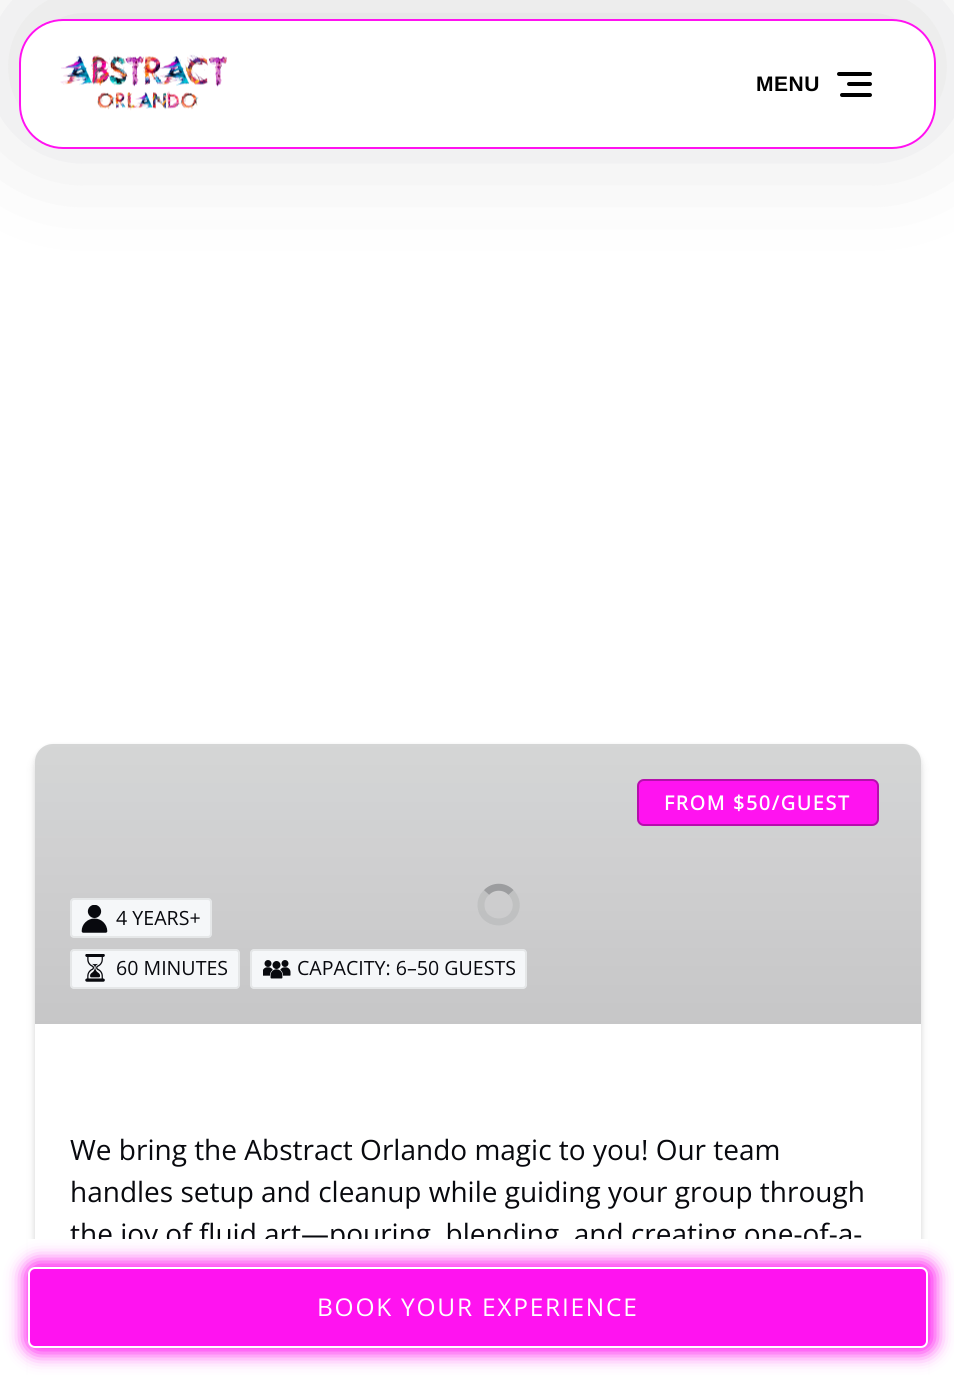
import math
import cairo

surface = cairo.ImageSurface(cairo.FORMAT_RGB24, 954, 1375)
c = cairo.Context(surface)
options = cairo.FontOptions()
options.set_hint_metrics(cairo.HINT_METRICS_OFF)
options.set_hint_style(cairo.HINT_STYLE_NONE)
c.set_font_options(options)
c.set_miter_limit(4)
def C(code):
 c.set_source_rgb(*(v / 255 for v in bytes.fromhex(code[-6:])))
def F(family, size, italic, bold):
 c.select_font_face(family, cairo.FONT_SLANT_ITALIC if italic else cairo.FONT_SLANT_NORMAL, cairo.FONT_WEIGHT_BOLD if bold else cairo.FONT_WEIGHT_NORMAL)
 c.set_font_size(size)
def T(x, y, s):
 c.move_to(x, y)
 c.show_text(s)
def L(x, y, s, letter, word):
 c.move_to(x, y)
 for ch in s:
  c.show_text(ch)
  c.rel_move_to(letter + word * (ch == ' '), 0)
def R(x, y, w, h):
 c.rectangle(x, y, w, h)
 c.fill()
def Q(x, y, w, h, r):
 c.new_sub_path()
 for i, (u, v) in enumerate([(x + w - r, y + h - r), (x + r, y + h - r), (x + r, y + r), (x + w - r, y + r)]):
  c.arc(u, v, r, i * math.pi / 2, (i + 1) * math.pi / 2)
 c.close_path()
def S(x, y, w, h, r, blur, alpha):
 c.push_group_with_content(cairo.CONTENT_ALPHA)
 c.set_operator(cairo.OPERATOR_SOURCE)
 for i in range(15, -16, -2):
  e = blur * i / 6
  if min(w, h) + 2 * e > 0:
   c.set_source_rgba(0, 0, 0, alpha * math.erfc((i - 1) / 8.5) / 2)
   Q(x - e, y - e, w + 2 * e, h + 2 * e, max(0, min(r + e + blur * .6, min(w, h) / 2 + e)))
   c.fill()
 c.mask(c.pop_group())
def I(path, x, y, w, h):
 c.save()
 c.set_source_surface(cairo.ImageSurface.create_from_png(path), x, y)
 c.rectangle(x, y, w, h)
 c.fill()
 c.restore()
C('ffffff')
c.paint()
c.save()
c.set_fill_rule(cairo.FILL_RULE_EVEN_ODD)
c.new_path()
c.move_to(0,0)
c.line_to(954,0)
c.line_to(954,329)
c.line_to(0,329)
c.close_path()
c.move_to(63,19)
c.line_to(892,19)
c.curve_to(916.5,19,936,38.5,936,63)
c.line_to(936,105)
c.curve_to(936,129.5,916.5,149,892,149)
c.line_to(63,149)
c.curve_to(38.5,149,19,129.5,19,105)
c.line_to(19,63)
c.curve_to(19,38.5,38.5,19,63,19)
c.close_path()
c.clip()
C('08090e')
S(19,2,917,129,44,65.5,.15)
c.restore()
c.set_source_rgba(1,1,1,0.7)
Q(20,20,915,128,43)
c.fill_preserve()
C('ff12f0')
c.stroke()
I('1.png',60,54,167,57)
F('Liberation Sans',21,0,1)
C('000000')
L(756,91,'MENU',.5,0)
Q(847,82,25,4,2)
c.fill()
Q(837,72,35,4,2)
c.fill()
Q(840,93,32,4,2)
c.fill()
C('000000')
S(35,751,886,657,18,5,.1)
S(35,746,886,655,18,2.5,.08)
C('ffffff')
Q(35,744,886,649,18)
c.fill()
F('Open Sans',28,0,0)
C('08090e')
T(70,1244,'the joy of fluid art—pouring, blending, and creating one-of-a-')
C('ffffff')
R(28,1239,900,136)
C('ff13f0')
S(25,1262,910,91,12,9,1)
C('ff13f0')
Q(29,1268,898,79,6)
c.fill_preserve()
C('ffffff')
c.stroke()
F('Open Sans',24.5,0,0)
L(317,1316,'BOOK YOUR EXPERIENCE',1.75,0)
gradient = cairo.LinearGradient(478,1024,478,744)
gradient.add_color_stop_rgba(0,0.031,0.035,0.055,.23)
gradient.add_color_stop_rgba(1,0.031,0.035,0.055,.17)
c.set_source(gradient)
c.new_path()
c.move_to(53,744)
c.line_to(903,744)
c.curve_to(913,744,921,752,921,762)
c.line_to(921,1024)
c.line_to(35,1024)
c.line_to(35,762)
c.curve_to(35,752,43,744,53,744)
c.close_path()
c.fill()
C('ff13f0')
Q(637,779,242,47,7)
c.fill()
Q(638,780,240,45,6)
c.set_source_rgba(0.031,0.035,0.055,0.3)
c.stroke()
F('Open Sans',19.6,0,1)
C('ffffff')
L(664,810,'FROM $50/GUEST',1.75,0)
c.new_path()
c.move_to(486.5,892.5)
c.curve_to(493,885.5,504.5,885.5,511,892.5)
C('9c9d9f')
c.set_line_width(7)
c.stroke()
c.new_path()
c.move_to(511,892.5)
c.curve_to(515,896.5,517,902.5,516,908)
c.curve_to(512,928.5,481,925.5,481,905)
c.curve_to(481,900,483,895.5,486.5,892.5)
c.set_source_rgba(0.608,0.612,0.62,0.25)
c.stroke()
C('f5f7f9')
Q(70,898,142,40,4)
c.fill()
Q(71,899,140,38,3)
c.set_source_rgba(0.031,0.035,0.055,0.07)
c.set_line_width(2)
c.stroke()
I('2.png',81,905,27,28)
F('Open Sans',19.6,0,0)
C('08090e')
T(116,925,'4 YEARS+')
C('f5f7f9')
Q(70,949,170,40,4)
c.fill()
Q(71,950,168,38,3)
c.set_source_rgba(0.031,0.035,0.055,0.07)
c.stroke()
I('3.png',85,954,20,28)
C('08090e')
T(116,975,'60 MINUTES')
C('f5f7f9')
Q(250,949,277,40,4)
c.fill()
Q(251,950,275,38,3)
c.set_source_rgba(0.031,0.035,0.055,0.07)
c.stroke()
I('4.png',263,960,28,19)
C('08090e')
T(297,975,'CAPACITY: 6–50 GUESTS')
F('Open Sans',28,0,0)
T(70,1160,'We bring the Abstract Orlando magic to you! Our team')
T(70,1202,'handles setup and cleanup while guiding your group through')
surface.write_to_png('o.png')
